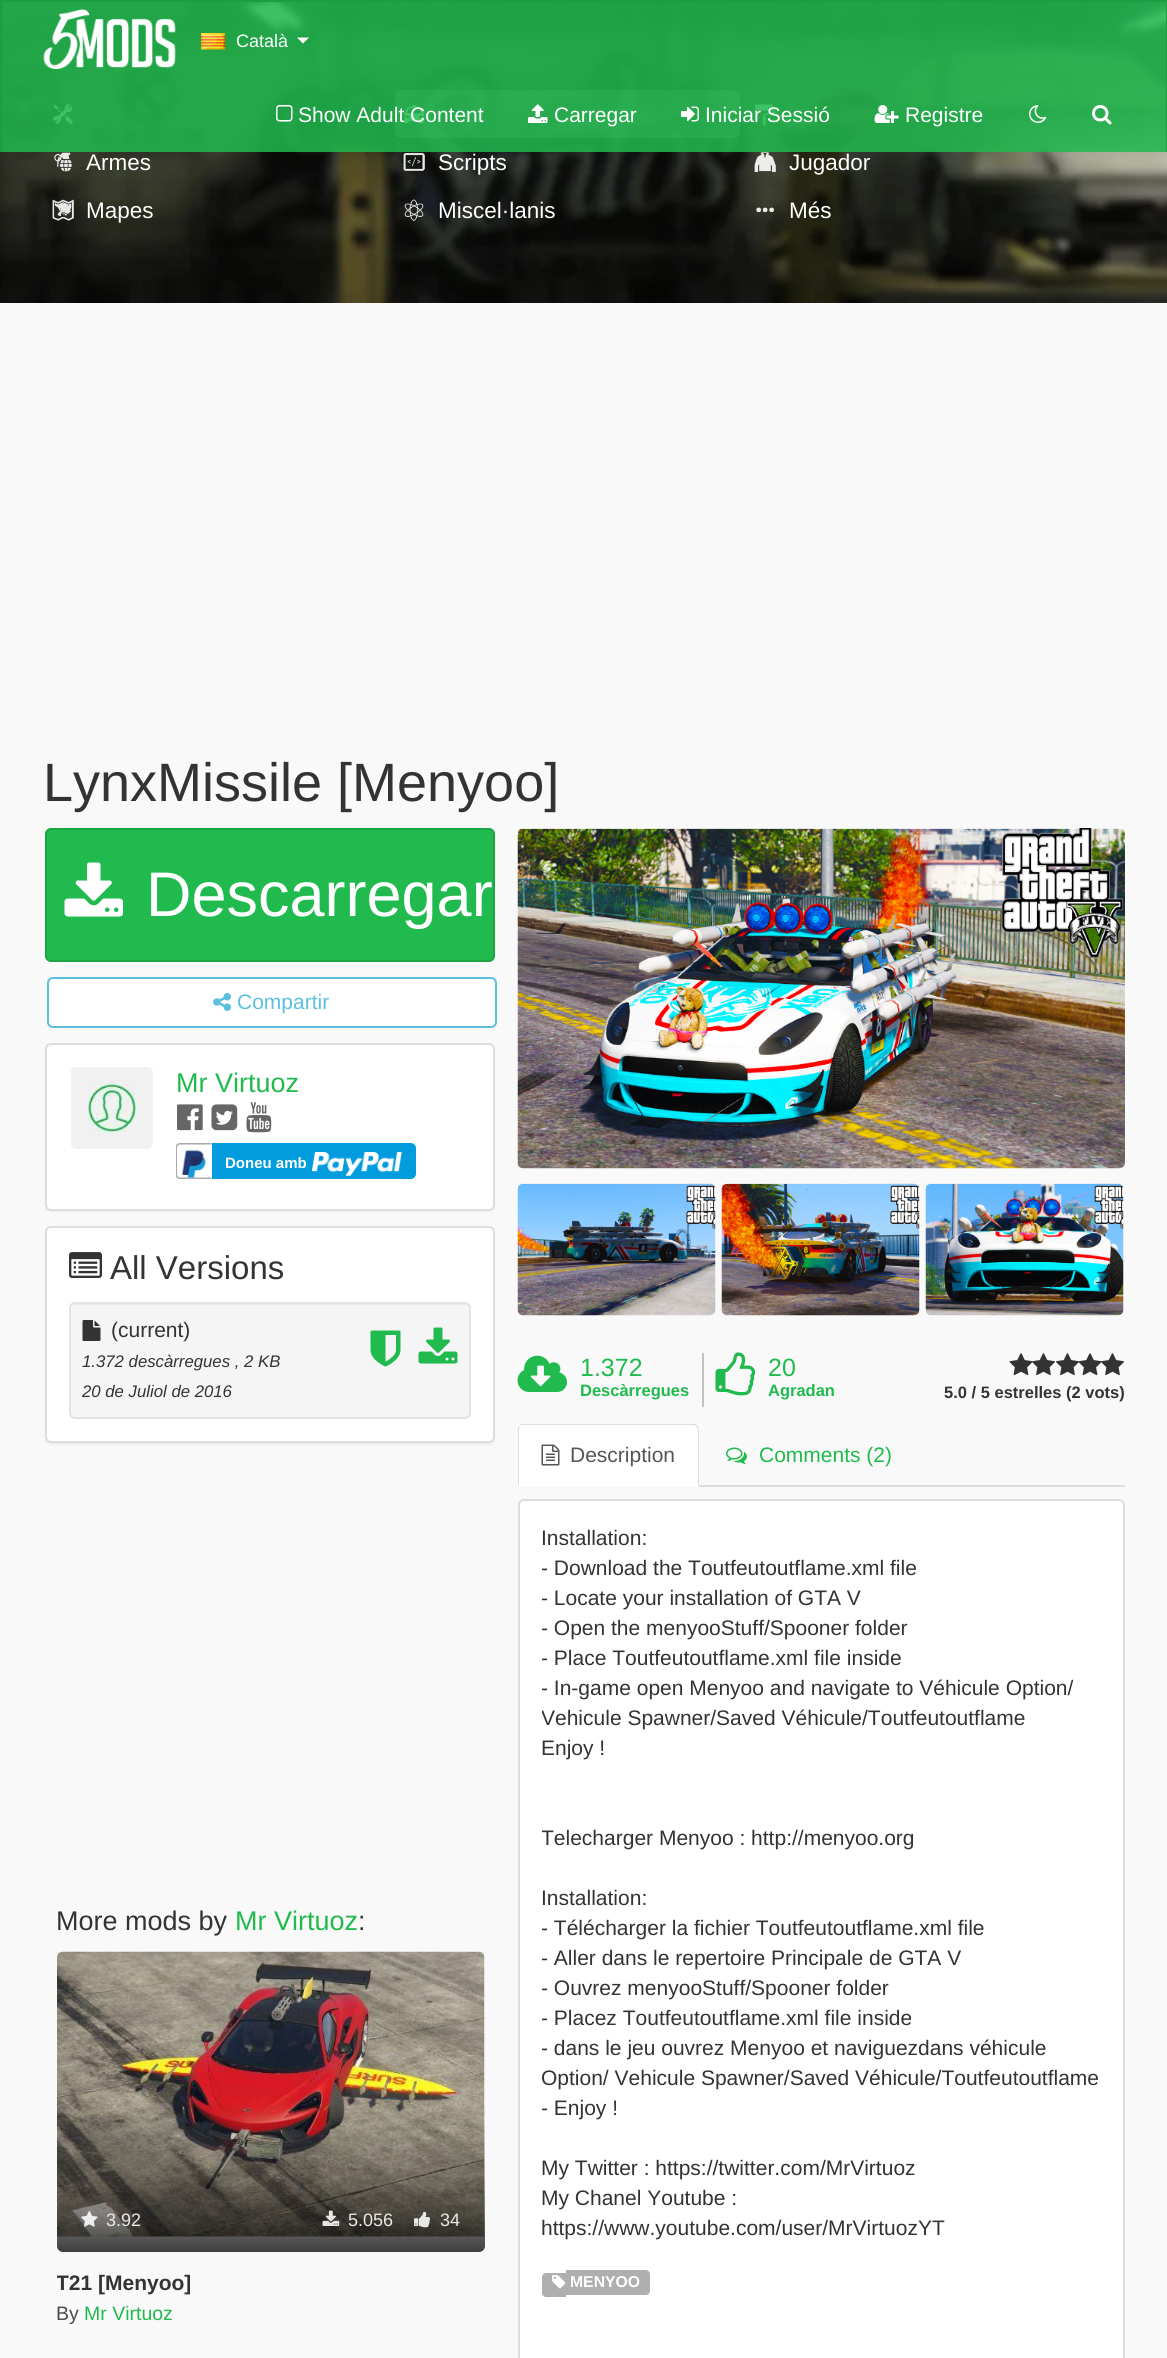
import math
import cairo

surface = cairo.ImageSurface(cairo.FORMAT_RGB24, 1167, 2358)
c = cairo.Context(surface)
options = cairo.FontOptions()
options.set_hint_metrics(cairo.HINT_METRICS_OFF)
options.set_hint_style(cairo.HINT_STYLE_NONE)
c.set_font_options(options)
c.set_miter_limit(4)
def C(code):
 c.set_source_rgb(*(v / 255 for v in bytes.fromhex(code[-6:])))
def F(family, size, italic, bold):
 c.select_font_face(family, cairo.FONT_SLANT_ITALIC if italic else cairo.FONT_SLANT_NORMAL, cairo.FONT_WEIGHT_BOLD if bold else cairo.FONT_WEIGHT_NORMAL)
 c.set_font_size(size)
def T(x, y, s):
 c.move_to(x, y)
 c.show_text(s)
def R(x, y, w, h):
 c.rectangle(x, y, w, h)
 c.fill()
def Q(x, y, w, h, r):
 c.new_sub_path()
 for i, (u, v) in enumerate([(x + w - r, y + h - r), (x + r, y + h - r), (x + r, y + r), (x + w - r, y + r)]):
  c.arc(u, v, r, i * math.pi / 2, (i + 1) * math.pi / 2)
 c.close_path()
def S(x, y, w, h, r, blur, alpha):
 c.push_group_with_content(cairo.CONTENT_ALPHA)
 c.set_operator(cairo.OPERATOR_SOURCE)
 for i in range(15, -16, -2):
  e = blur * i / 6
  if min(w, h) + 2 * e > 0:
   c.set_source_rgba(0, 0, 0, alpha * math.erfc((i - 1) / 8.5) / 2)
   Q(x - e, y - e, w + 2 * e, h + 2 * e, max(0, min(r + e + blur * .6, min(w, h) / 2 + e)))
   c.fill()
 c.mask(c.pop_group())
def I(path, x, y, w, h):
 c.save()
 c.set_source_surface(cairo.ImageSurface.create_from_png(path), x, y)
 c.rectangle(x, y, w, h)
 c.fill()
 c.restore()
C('f9f9f9')
c.paint()
I('9.png',0,2,1167,301)
I('10.png',53,104,20,20)
c.set_source_rgba(1,1,1,0.25)
Q(395,90,345,48,6)
c.fill()
I('11.png',403,105,22,18)
I('12.png',755,104,20,21)
c.set_source_rgba(0.125,0.729,0.306,0.85)
R(2,2,1164,150)
C('1b9e42')
R(0,0,1167,2)
R(1166,0,1,152)
R(0,0,2,152)
I('1.png',43,9,133,60)
I('2.png',201,33,24,17)
F('Liberation Sans',18,0,0)
C('ffffff')
T(236,47,'Català')
c.new_path()
c.move_to(297,37.5)
c.line_to(309,37.5)
c.line_to(303,43.5)
c.close_path()
c.fill()
I('3.png',276,105,17,17)
F('Liberation Sans',21,0,0)
T(298,122,'Show Adult Content')
I('4.png',528,104,20,19)
T(554,122,'Carregar')
I('5.png',681,106,18,16)
T(705,122,'Iniciar Sessió')
I('6.png',874,105,25,18)
T(905,122,'Registre')
I('7.png',1029,105,18,18)
I('8.png',1092,105,20,20)
I('13.png',54,152,18,20)
F('Liberation Sans',22.5,0,0)
T(86,170,'Armes')
I('14.png',403,153,22,18)
T(438,170,'Scripts')
I('15.png',754,152,22,20)
T(789,170,'Jugador')
I('16.png',52,199,22,22)
T(86,218,'Mapes')
I('17.png',404,199,20,22)
T(438,218,'Miscel·lanis')
I('18.png',756,207,18,6)
T(789,218,'Més')
F('Liberation Sans',54,0,0)
C('333333')
T(43,801,'LynxMissile [Menyoo]')
C('20ba4e')
Q(46,829,448,132,5)
c.fill_preserve()
C('1ca445')
c.stroke()
I('19.png',64,862,59,55)
F('Liberation Sans',63,0,0)
C('ffffff')
T(146,916,'Descarregar')
Q(48,978,448,49,5)
c.fill_preserve()
C('5bc0de')
c.stroke()
I('20.png',213,993,18,18)
F('Liberation Sans',21,0,0)
T(237,1009,'Compartir')
C('000000')
S(45,1044,450,168,6,1,.05)
C('ffffff')
Q(46,1044,448,166,5)
c.fill_preserve()
C('dddddd')
c.stroke()
I('21.png',71,1067,82,82)
F('Liberation Sans',27,0,0)
C('20ba4e')
T(176,1092,'Mr Virtuoz')
I('22.png',177,1104,26,27)
I('23.png',211,1104,27,27)
I('24.png',246,1102,26,31)
c.save()
c.rectangle(176,1143,240,36)
c.clip()
C('aaaaaa')
c.set_fill_rule(cairo.FILL_RULE_EVEN_ODD)
c.new_path()
c.move_to(180,1143)
c.line_to(211.5,1143)
c.line_to(211.5,1179)
c.line_to(180,1179)
c.curve_to(177.5,1179,175.5,1177,175.5,1174.5)
c.line_to(175.5,1147.5)
c.curve_to(175.5,1145,177.5,1143,180,1143)
c.close_path()
c.move_to(180,1144.5)
c.line_to(211.5,1144.5)
c.line_to(211.5,1177.5)
c.line_to(180,1177.5)
c.curve_to(178.5,1177.5,177,1176,177,1174.5)
c.line_to(177,1147.5)
c.curve_to(177,1146,178.5,1144.5,180,1144.5)
c.close_path()
c.fill()
c.restore()
I('25.png',181,1150,25,28)
C('009cde')
c.new_path()
c.move_to(213,1144)
c.line_to(411,1144)
c.curve_to(413,1144,415,1146,415,1148)
c.line_to(415,1174)
c.curve_to(415,1176,413,1178,411,1178)
c.line_to(213,1178)
c.close_path()
c.fill_preserve()
c.stroke()
F('Liberation Sans',15,0,1)
C('ffffff')
T(225,1168,'Doneu amb')
I('26.png',312,1152,90,24)
C('000000')
S(45,1227,450,218,6,1,.05)
C('ffffff')
Q(46,1227,448,215,5)
c.fill_preserve()
C('dddddd')
c.stroke()
I('27.png',69,1252,33,26)
F('Liberation Sans',33,0,0)
C('333333')
T(110,1279,'All Versions')
C('f5f5f5')
Q(69,1302,402,117,6)
c.fill()
C('e9e9e9')
c.new_path()
c.move_to(75,1305)
c.line_to(465,1305)
c.curve_to(467,1305,470,1307,470,1310)
c.line_to(470,1309)
c.curve_to(470,1306,468,1304,465,1304)
c.line_to(76,1304)
c.curve_to(74,1304,73,1305,72,1306)
c.close_path()
c.fill()
Q(70,1303,400,115,5)
C('e3e3e3')
c.stroke()
I('28.png',82,1320,19,21)
F('Liberation Sans',21,0,0)
C('333333')
T(111,1337,'(current)')
F('Liberation Sans',16.75,1,0)
T(82,1367,'1.372 descàrregues , 2 KB')
T(82,1397,'20 de Juliol de 2016')
I('29.png',370,1330,31,37)
I('30.png',418,1327,40,37)
F('Liberation Sans',27,0,0)
T(56,1930,'More mods by')
C('20ba4e')
T(235,1930,'Mr Virtuoz')
C('333333')
T(358,1930,':')
I('31.png',57,1951,428,286)
gradient = cairo.LinearGradient(271,1952,271,2252)
gradient.add_color_stop_rgba(.5,0,0,0,0)
gradient.add_color_stop_rgba(.75,0,0,0,.25)
gradient.add_color_stop_rgba(1,0,0,0,.75)
c.set_source(gradient)
Q(57,1952,428,300,6)
c.fill()
I('32.png',81,2211,17,16)
F('Liberation Sans',18,0,0)
C('eaeae9')
T(106,2226,'3.92')
I('33.png',322,2210,18,16)
T(348,2226,'5.056')
I('34.png',414,2211,16,17)
T(440,2226,'34')
c.save()
c.rectangle(57,2267,428,30)
c.clip()
F('Liberation Sans',21,0,1)
C('333333')
T(56,2290,'T21 [Menyoo]')
c.restore()
F('Liberation Sans',19.5,0,0)
C('4b4b4b')
T(56,2320,'By')
C('20ba4e')
T(84,2320,'Mr Virtuoz')
I('35.png',517,828,608,341)
I('36.png',517,1183,199,133)
I('37.png',721,1183,199,133)
I('38.png',925,1183,199,133)
I('39.png',517,1355,50,37)
C('c2c2c2')
R(702,1353,2,54)
F('Liberation Sans',25,0,0)
C('20ba4e')
T(580,1376,'1.372')
F('Liberation Sans',16.5,0,1)
T(580,1396,'Descàrregues')
I('40.png',715,1352,41,44)
F('Liberation Sans',25,0,0)
T(768,1376,'20')
F('Liberation Sans',16.5,0,1)
T(768,1396,'Agradan')
I('41.png',1009,1353,24,23)
I('42.png',1032,1353,23,23)
I('43.png',1056,1353,23,23)
I('44.png',1078,1353,24,23)
I('42.png',1101,1353,23,23)
C('333333')
T(944,1398,'5.0 / 5 estrelles (2 vots)')
C('dddddd')
R(699,1485,426,2)
C('ffffff')
c.new_path()
c.move_to(524,1424)
c.line_to(693,1424)
c.curve_to(696.5,1424,699,1426.5,699,1430)
c.line_to(699,1487)
c.line_to(518,1487)
c.line_to(518,1430)
c.curve_to(518,1426.5,520.5,1424,524,1424)
c.close_path()
c.fill()
C('dddddd')
c.new_path()
c.move_to(524,1424)
c.curve_to(522,1424,520,1424,520,1426)
c.curve_to(521,1425,523,1425,524,1425)
c.line_to(693,1425)
c.line_to(696,1426)
c.line_to(697,1425)
c.curve_to(696,1424,694,1424,693,1424)
c.close_path()
c.fill()
c.new_path()
c.move_to(697,1425)
c.curve_to(698,1426,699,1428,699,1430)
c.line_to(699,1486)
c.line_to(698,1486)
c.line_to(698,1485)
c.line_to(698,1429)
c.line_to(696,1426)
c.close_path()
c.fill()
c.new_path()
c.move_to(520,1426)
c.curve_to(518,1426,518,1428,518,1430)
c.line_to(518,1486)
c.line_to(519,1485)
c.line_to(519,1430)
c.curve_to(519,1428,520,1427,520,1426)
c.close_path()
c.fill()
I('45.png',541,1444,19,22)
F('Liberation Sans',21,0,0)
C('555555')
T(570,1462,'Description')
I('46.png',726,1447,21,17)
C('20ba4e')
T(759,1462,'Comments (2)')
C('ffffff')
Q(519,1500,605,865,5)
c.fill_preserve()
C('dddddd')
c.stroke()
C('333333')
T(541,1545,'Installation:')
c.save()
c.rectangle(542,1523,559,720)
c.clip()
T(541,1575,'- Download the Toutfeutoutflame.xml file')
T(541,1605,'- Locate your installation of GTA V')
T(541,1635,'- Open the menyooStuff/Spooner folder')
T(541,1665,'- Place Toutfeutoutflame.xml file inside')
T(541,1695,'- In-game open Menyoo and navigate to Véhicule Option/')
T(541,1725,'Vehicule Spawner/Saved Véhicule/Toutfeutoutflame')
c.restore()
T(541,1755,'Enjoy !')
c.save()
c.rectangle(542,1523,559,720)
c.clip()
T(541,1845,'Telecharger Menyoo : http://menyoo.org')
c.restore()
T(541,1905,'Installation:')
c.save()
c.rectangle(542,1523,559,720)
c.clip()
T(541,1935,'- Télécharger la fichier Toutfeutoutflame.xml file')
T(541,1965,'- Aller dans le repertoire Principale de GTA V')
T(541,1995,'- Ouvrez menyooStuff/Spooner folder')
T(541,2025,'- Placez Toutfeutoutflame.xml file inside')
T(541,2055,'- dans le jeu ouvrez Menyoo et naviguezdans véhicule')
T(541,2085,'Option/ Vehicule Spawner/Saved Véhicule/Toutfeutoutflame')
T(541,2115,'- Enjoy !')
c.restore()
T(541,2175,'My Twitter : https://twitter.com/MrVirtuoz')
T(541,2205,'My Chanel Youtube :')
T(541,2235,'https://www.youtube.com/user/MrVirtuozYT')
C('afafaf')
c.new_path()
c.move_to(546,2273)
c.line_to(566,2273)
c.line_to(566,2297)
c.line_to(546,2297)
c.curve_to(544,2297,542,2295,542,2293)
c.line_to(542,2277)
c.curve_to(542,2275,544,2273,546,2273)
c.close_path()
c.fill()
c.new_path()
c.move_to(566,2270)
c.line_to(646,2270)
c.curve_to(648,2270,650,2272,650,2274)
c.line_to(650,2291)
c.curve_to(650,2293,648,2295,646,2295)
c.line_to(566,2295)
c.close_path()
c.fill()
I('47.png',552,2275,14,14)
F('Liberation Sans',15.75,0,1)
C('ffffff')
T(570,2287,'MENYOO')
surface.write_to_png('o.png')
